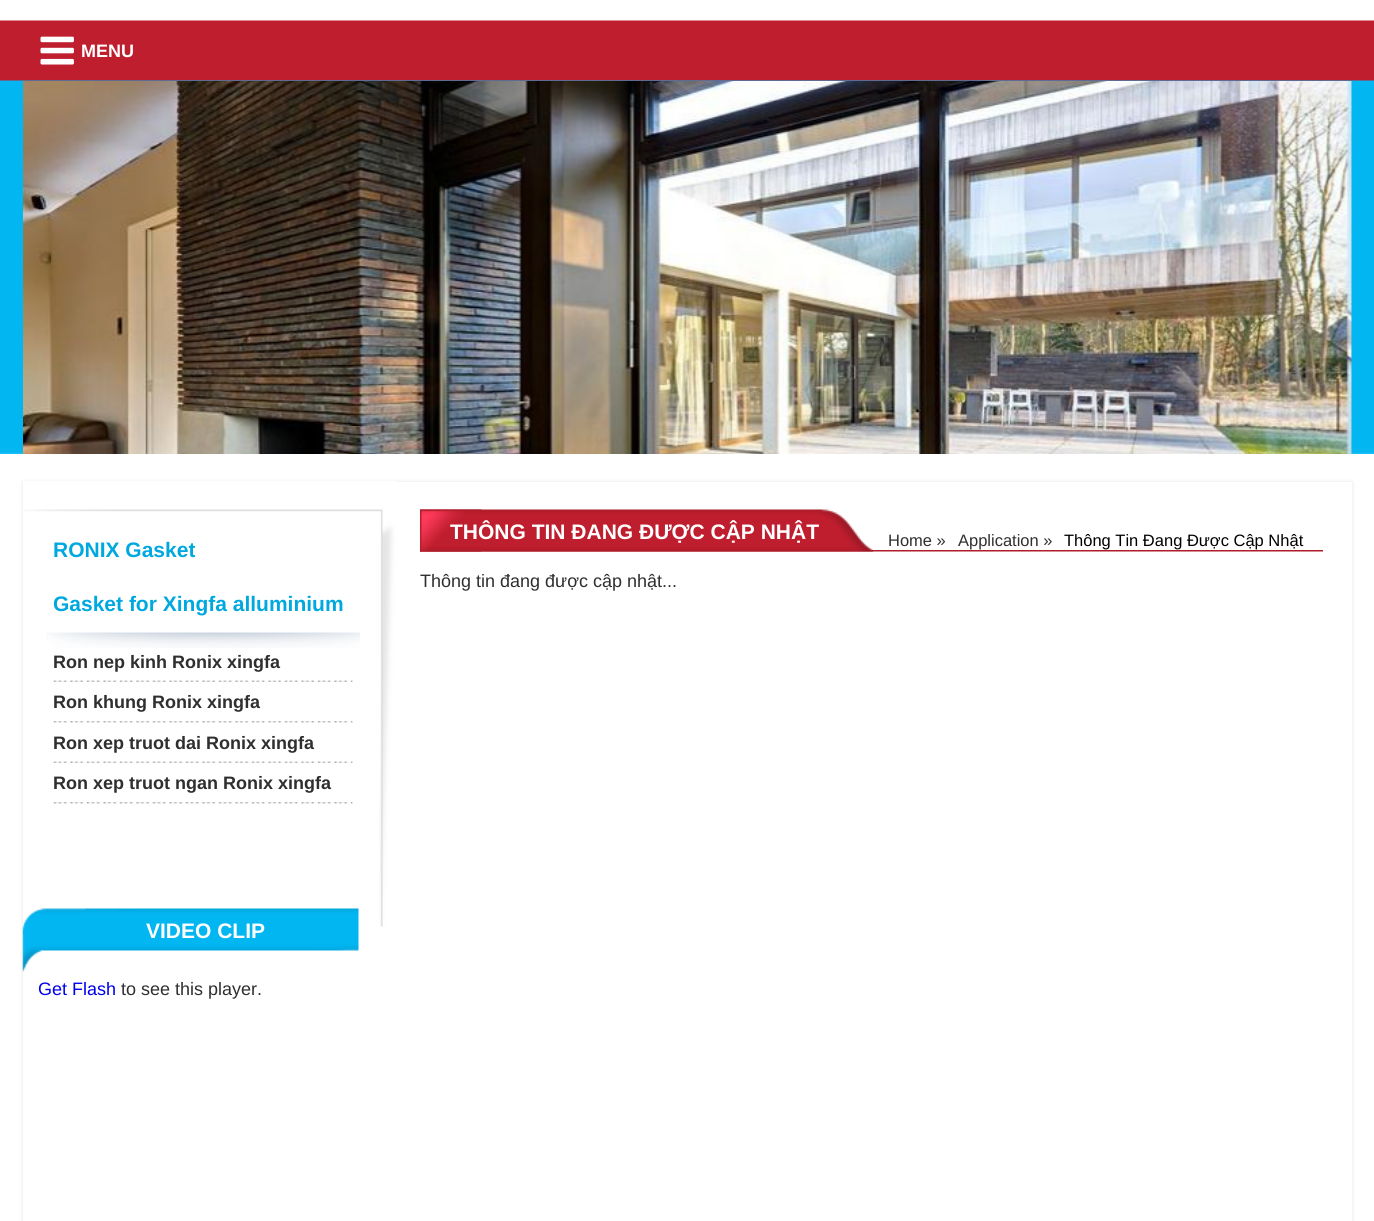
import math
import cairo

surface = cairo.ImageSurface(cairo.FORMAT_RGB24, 1374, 1221)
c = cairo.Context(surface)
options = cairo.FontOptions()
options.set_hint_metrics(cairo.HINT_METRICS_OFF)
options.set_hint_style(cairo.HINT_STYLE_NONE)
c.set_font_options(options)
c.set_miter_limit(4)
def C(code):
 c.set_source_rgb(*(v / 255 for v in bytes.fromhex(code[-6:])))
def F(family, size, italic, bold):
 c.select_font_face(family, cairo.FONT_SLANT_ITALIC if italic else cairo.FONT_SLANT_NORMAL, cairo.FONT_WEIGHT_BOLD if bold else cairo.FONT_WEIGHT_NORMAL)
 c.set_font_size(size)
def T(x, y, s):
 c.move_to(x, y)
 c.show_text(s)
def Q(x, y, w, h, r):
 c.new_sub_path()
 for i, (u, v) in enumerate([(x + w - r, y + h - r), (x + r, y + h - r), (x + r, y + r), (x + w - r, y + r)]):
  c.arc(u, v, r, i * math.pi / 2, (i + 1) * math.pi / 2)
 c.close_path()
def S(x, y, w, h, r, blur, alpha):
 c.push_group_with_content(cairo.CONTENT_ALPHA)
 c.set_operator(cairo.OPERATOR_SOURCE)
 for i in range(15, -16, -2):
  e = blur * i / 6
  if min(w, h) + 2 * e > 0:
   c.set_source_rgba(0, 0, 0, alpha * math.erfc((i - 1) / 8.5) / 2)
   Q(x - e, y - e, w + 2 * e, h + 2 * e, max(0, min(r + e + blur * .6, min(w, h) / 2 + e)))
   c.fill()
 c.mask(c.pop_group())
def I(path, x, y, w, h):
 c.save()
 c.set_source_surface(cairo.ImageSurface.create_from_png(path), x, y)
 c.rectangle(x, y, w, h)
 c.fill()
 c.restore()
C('ffffff')
c.paint()
I('1.png',0,20,1374,434)
I('2.png',40,36,34,29)
F('Liberation Sans',18,0,1)
C('ffffff')
T(81,57,'MENU')
I('3.png',23,81,1329,373)
c.save()
c.set_fill_rule(cairo.FILL_RULE_EVEN_ODD)
c.new_path()
c.move_to(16,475)
c.line_to(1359,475)
c.line_to(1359,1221)
c.line_to(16,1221)
c.close_path()
c.move_to(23,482)
c.line_to(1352,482)
c.line_to(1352,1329)
c.line_to(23,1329)
c.close_path()
c.clip()
C('e5e5e5')
S(23,482,1329,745,0,2,1)
c.restore()
I('4.png',23,481,374,446)
F('Liberation Sans',21,0,1)
C('00a8e0')
T(53,557,'RONIX Gasket')
T(53,611,'Gasket for Xingfa alluminium')
I('5.png',46,632,314,16)
I('6.png',53,680,300,2)
F('Liberation Sans',18,0,1)
C('2f2f2f')
T(53,668,'Ron nep kinh Ronix xingfa')
I('7.png',53,721,300,2)
T(53,708,'Ron khung Ronix xingfa')
I('8.png',53,761,300,2)
T(53,749,'Ron xep truot dai Ronix xingfa')
I('9.png',53,802,300,2)
T(53,789,'Ron xep truot ngan Ronix xingfa')
I('10.png',22,908,337,64)
F('Liberation Sans',21,0,1)
C('ffffff')
T(146,938,'VIDEO CLIP')
F('Liberation Sans',18,0,0)
C('0000ee')
T(38,995,'Get Flash')
C('2f2f2f')
T(121,995,'to see this player.')
I('11.png',420,550,903,2)
I('12.png',420,509,453,43)
I('13.png',420,509,62,43)
F('Liberation Sans',21,0,1)
C('ffffff')
T(450,539,'THÔNG TIN ĐANG ĐƯỢC CẬP NHẬT')
F('Liberation Sans',16.5,0,0)
C('2f2f2f')
T(888,546,'Home »')
T(958,546,'Application »')
C('000000')
T(1064,546,'Thông Tin Đang Được Cập Nhật')
F('Liberation Sans',18,0,0)
C('2f2f2f')
T(420,587,'Thông tin đang được cập nhật...')
surface.write_to_png('o.png')
